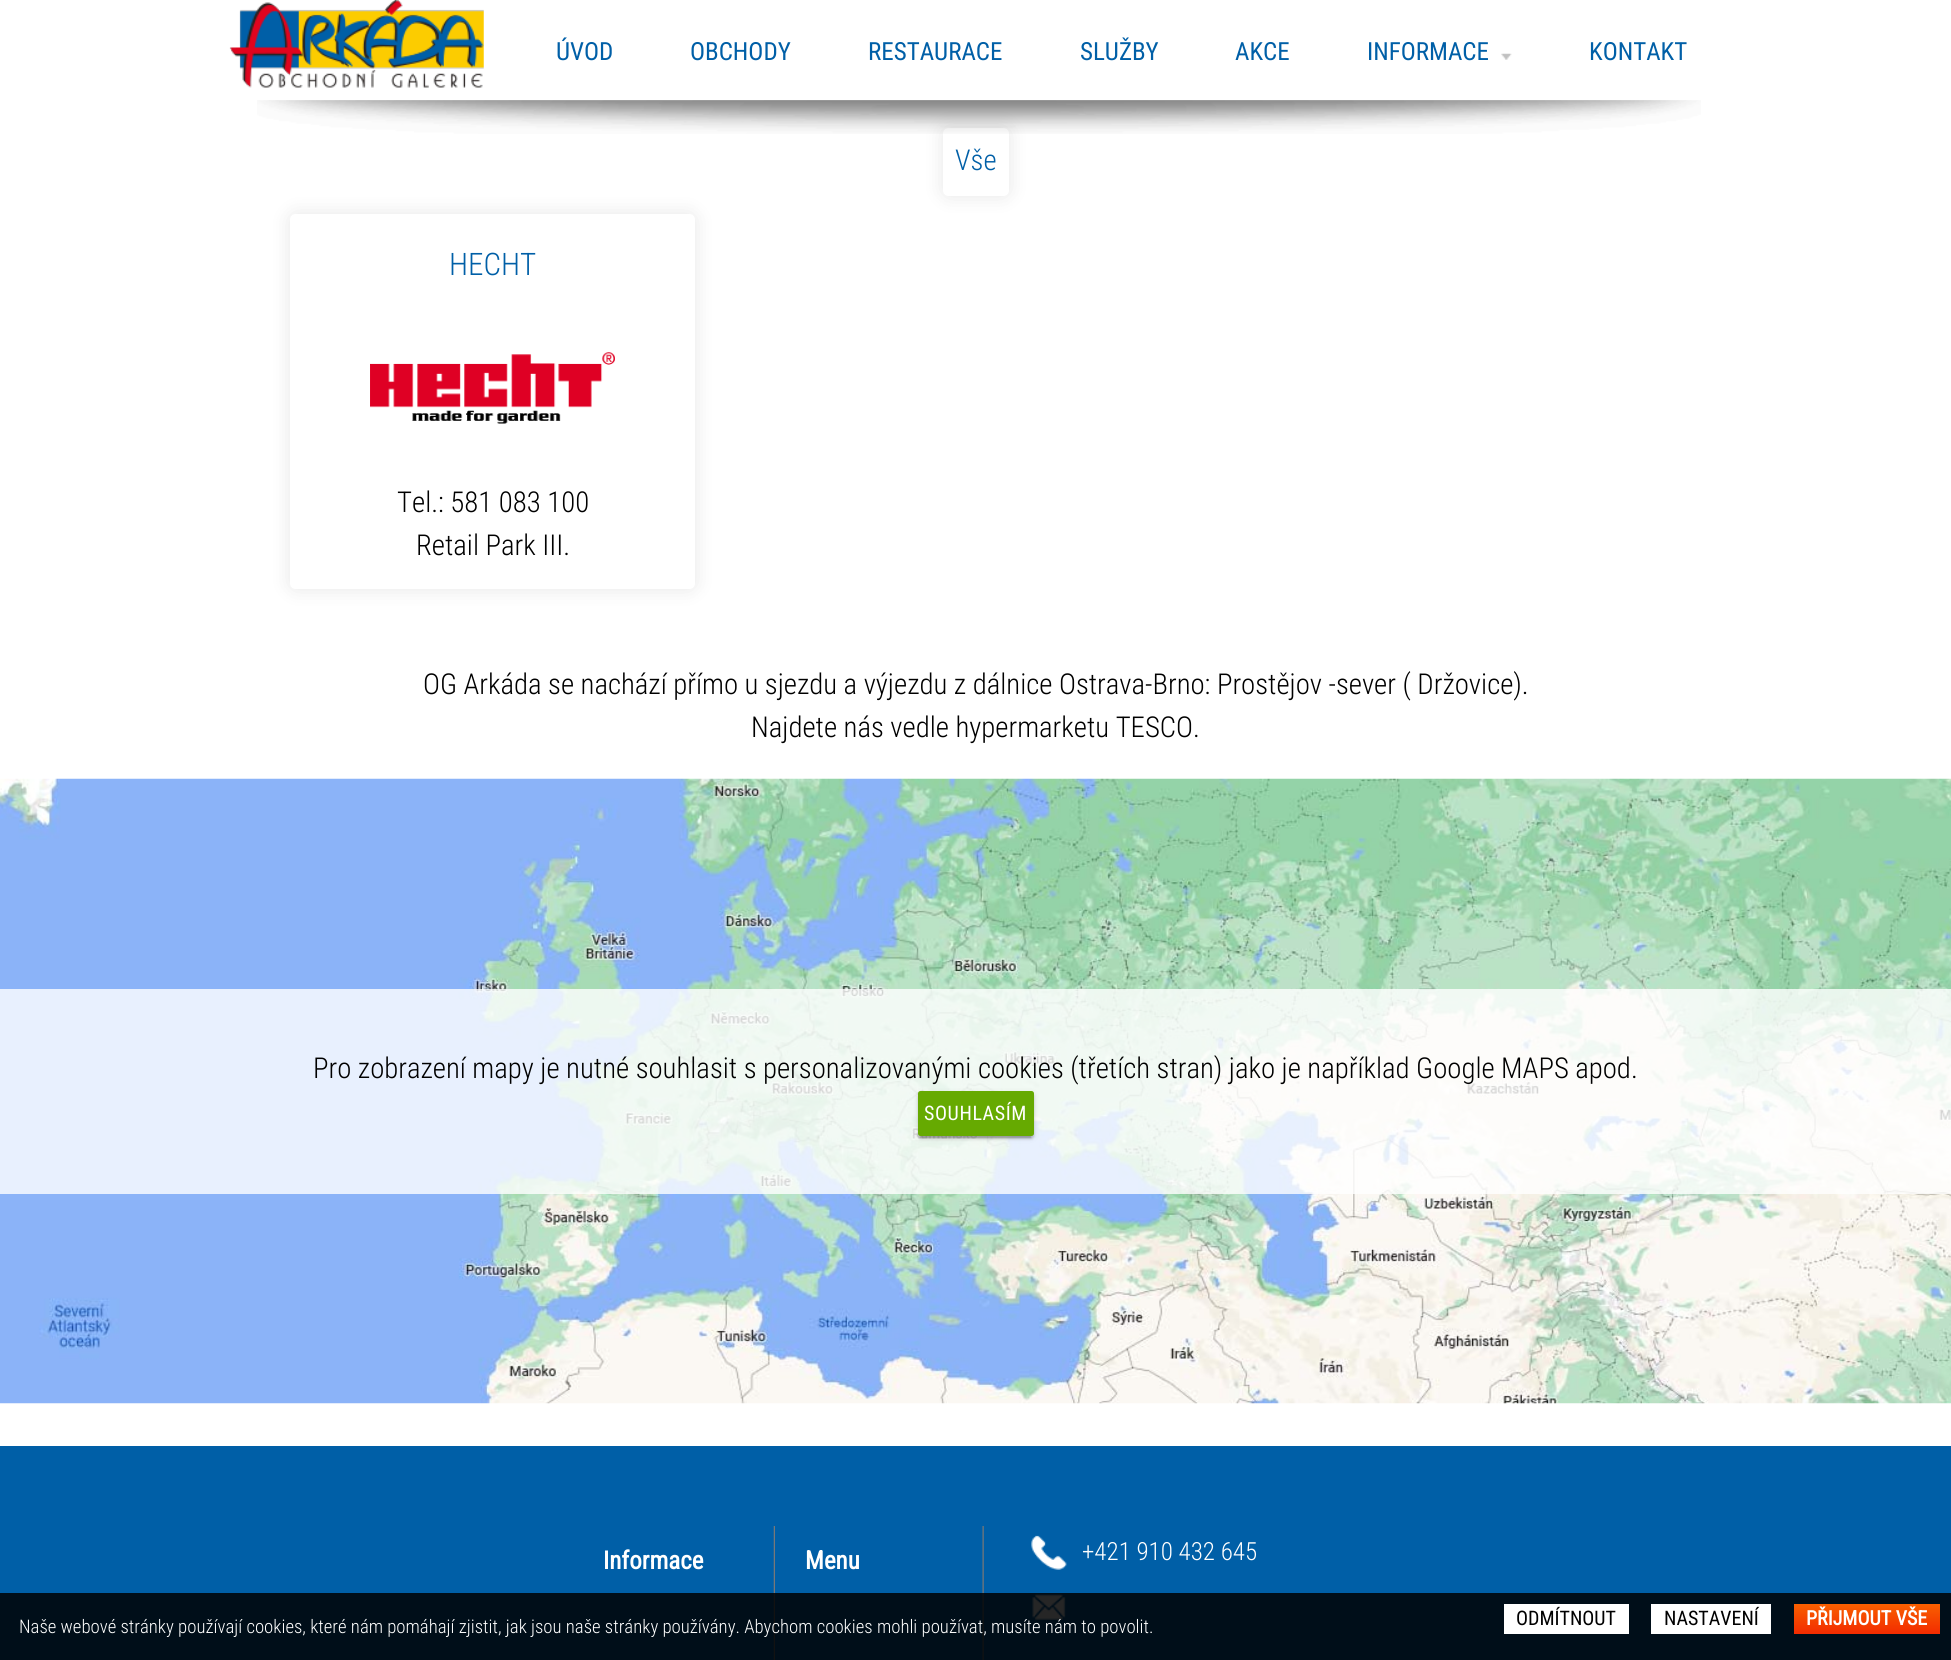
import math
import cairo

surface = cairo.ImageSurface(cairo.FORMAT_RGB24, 1951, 1660)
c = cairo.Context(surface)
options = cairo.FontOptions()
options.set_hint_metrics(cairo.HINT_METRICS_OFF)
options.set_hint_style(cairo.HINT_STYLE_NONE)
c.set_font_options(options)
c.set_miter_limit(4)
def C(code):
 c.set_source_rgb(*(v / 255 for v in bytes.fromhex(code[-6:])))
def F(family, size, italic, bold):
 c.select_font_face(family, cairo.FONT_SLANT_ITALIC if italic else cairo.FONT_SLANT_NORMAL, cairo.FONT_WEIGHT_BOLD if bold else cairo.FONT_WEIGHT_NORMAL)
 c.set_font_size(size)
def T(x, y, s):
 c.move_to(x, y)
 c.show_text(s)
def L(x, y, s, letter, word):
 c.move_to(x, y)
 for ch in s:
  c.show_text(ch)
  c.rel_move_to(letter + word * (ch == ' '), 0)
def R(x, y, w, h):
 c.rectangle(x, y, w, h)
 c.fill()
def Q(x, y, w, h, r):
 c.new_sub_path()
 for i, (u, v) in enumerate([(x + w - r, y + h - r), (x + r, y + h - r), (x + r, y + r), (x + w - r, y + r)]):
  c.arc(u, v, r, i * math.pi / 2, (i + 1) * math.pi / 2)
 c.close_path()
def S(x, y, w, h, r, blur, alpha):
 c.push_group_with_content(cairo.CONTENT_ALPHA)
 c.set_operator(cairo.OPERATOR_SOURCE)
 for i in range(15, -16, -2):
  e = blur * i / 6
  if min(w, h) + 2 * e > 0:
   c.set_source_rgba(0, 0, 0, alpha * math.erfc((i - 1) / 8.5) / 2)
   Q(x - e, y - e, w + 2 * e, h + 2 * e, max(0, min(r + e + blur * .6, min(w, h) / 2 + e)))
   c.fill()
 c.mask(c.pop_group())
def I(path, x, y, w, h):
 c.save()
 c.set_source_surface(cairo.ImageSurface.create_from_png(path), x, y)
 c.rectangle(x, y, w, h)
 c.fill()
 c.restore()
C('ffffff')
c.paint()
c.save()
c.set_fill_rule(cairo.FILL_RULE_EVEN_ODD)
c.new_path()
c.move_to(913,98)
c.line_to(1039,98)
c.line_to(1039,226)
c.line_to(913,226)
c.close_path()
c.move_to(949,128)
c.line_to(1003,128)
c.curve_to(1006.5,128,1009,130.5,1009,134)
c.line_to(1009,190)
c.curve_to(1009,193.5,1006.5,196,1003,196)
c.line_to(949,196)
c.curve_to(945.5,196,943,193.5,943,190)
c.line_to(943,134)
c.curve_to(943,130.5,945.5,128,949,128)
c.close_path()
c.clip()
C('000000')
S(943,128,66,68,6,9.5,.1)
c.restore()
I('1.png',257,100,1444,34)
I('2.png',229,0,255,88)
F('Roboto Condensed',25,0,0)
C('005fa7')
T(556,60,'ÚVOD')
T(690,60,'OBCHODY')
T(868,60,'RESTAURACE')
T(1080,60,'SLUŽBY')
T(1235,60,'AKCE')
T(1367,60,'INFORMACE')
I('3.png',1501,53,11,7)
T(1589,60,'KONTAKT')
F('Roboto Condensed Light',28.75,0,0)
T(955,170,'Vše')
c.save()
c.set_fill_rule(cairo.FILL_RULE_EVEN_ODD)
c.new_path()
c.move_to(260,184)
c.line_to(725,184)
c.line_to(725,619)
c.line_to(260,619)
c.close_path()
c.move_to(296,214)
c.line_to(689,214)
c.curve_to(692.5,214,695,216.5,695,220)
c.line_to(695,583)
c.curve_to(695,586.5,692.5,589,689,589)
c.line_to(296,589)
c.curve_to(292.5,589,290,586.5,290,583)
c.line_to(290,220)
c.curve_to(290,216.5,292.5,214,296,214)
c.close_path()
c.clip()
C('000000')
S(290,214,405,375,6,9.5,.1)
c.restore()
F('Roboto Condensed Light',31,0,0)
T(449,275,'HECHT')
I('4.png',370,352,245,72)
F('Roboto Condensed Light',28.75,0,0)
C('000000')
T(397,512,'Tel.: 581 083 100')
T(416,555,'Retail Park III.')
T(423,694,'OG Arkáda se nachází přímo u sjezdu a výjezdu z dálnice Ostrava-Brno: Prostějov -sever ( Držovice).')
T(751,737,'Najdete nás vedle hypermarketu TESCO.')
I('5.png',0,778,1951,626)
c.set_source_rgba(1,1,1,0.8)
R(0,989,1951,205)
C('000000')
T(313,1078,'Pro zobrazení mapy je nutné souhlasit s personalizovanými cookies (třetích stran) jako je například Google MAPS apod.')
C('000000')
S(920,1098,111,40,0,.5,.2)
S(918,1093,116,45,2.5,3,.12)
S(918,1094,116,45,2.5,1,.14)
C('66aa01')
Q(918,1091,116,45,2.5)
c.fill()
F('Roboto Condensed',20,0,0)
C('ffffff')
L(924,1120,'SOUHLASÍM',.6,0)
C('005fa7')
R(0,1446,1951,214)
F('Roboto Condensed',25,0,1)
C('ffffff')
T(603,1569,'Informace')
I('6.png',773,1526,2,134)
T(805,1569,'Menu')
I('7.png',982,1526,2,134)
I('8.png',1031,1535,36,35)
F('Roboto Condensed Light',25,0,0)
T(1082,1560,'+421 910 432 645')
I('9.png',1032,1594,34,26)
c.set_source_rgba(0,0,0,0.85)
R(0,1593,1951,67)
F('Roboto Condensed Light',18.75,0,0)
C('ffffff')
T(19,1633,'Naše webové stránky používají cookies, které nám pomáhají zjistit, jak jsou naše stránky používány. Abychom cookies mohli používat, musíte nám to povolit.')
R(1504,1604,125,30)
F('Roboto Condensed',20,0,0)
C('000000')
T(1516,1625,'ODMÍTNOUT')
C('ffffff')
R(1651,1604,120,30)
C('000000')
T(1664,1625,'NASTAVENÍ')
gradient = cairo.LinearGradient(1867,1604,1867,1634)
gradient.add_color_stop_rgba(0,0.973,0.376,0,1)
gradient.add_color_stop_rgba(1,0.953,0.169,0,1)
c.set_source(gradient)
R(1794,1604,146,30)
F('Roboto Condensed',20,0,1)
C('ffffff')
T(1806,1625,'PŘIJMOUT VŠE')
surface.write_to_png('o.png')
